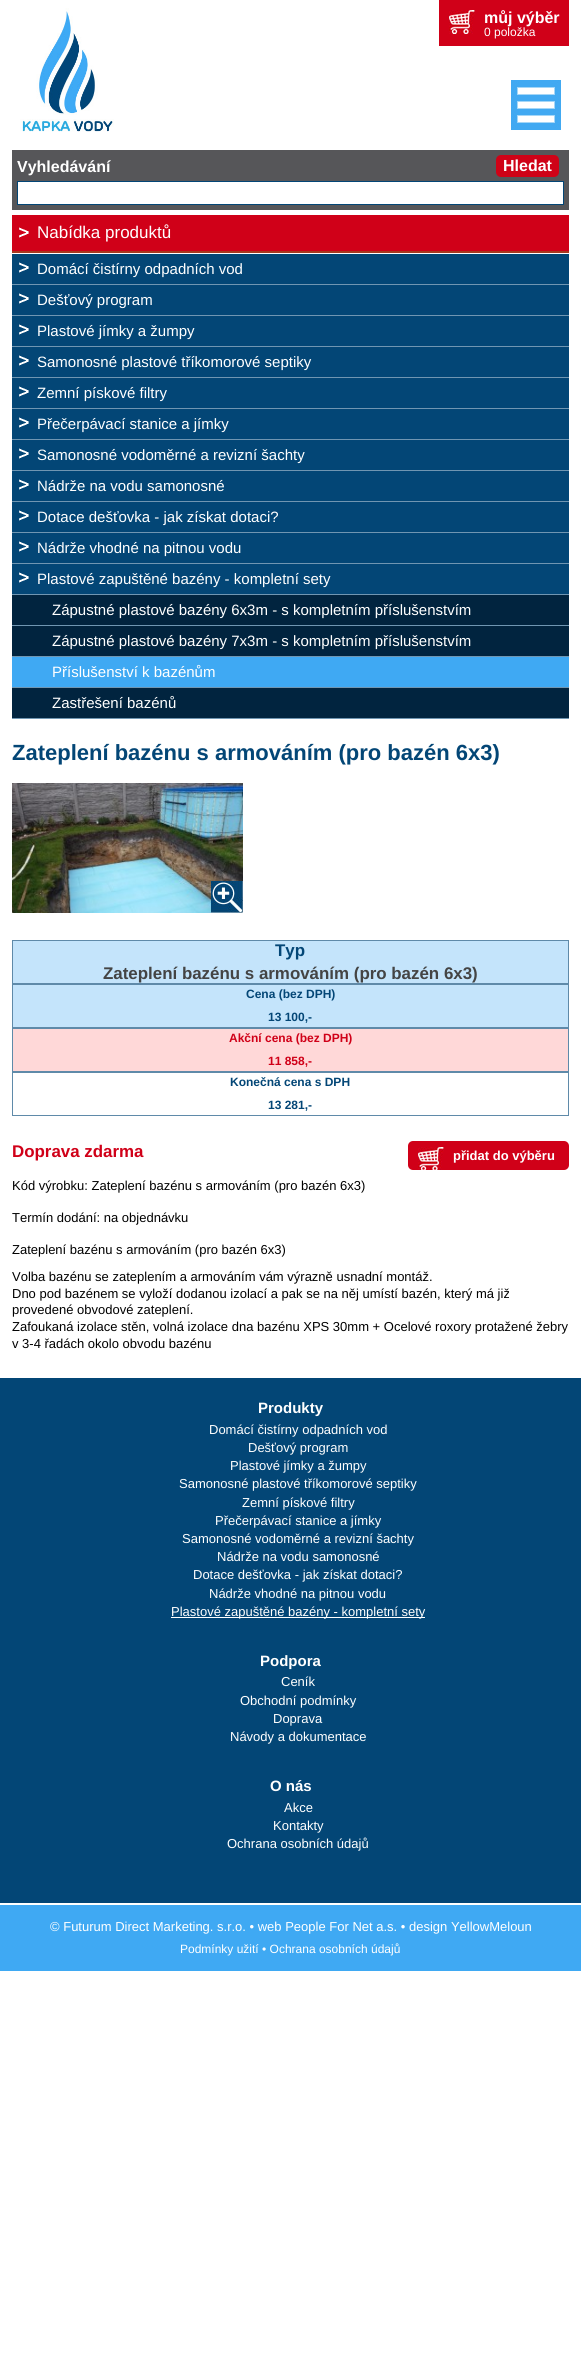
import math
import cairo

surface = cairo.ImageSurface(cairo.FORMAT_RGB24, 581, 2363)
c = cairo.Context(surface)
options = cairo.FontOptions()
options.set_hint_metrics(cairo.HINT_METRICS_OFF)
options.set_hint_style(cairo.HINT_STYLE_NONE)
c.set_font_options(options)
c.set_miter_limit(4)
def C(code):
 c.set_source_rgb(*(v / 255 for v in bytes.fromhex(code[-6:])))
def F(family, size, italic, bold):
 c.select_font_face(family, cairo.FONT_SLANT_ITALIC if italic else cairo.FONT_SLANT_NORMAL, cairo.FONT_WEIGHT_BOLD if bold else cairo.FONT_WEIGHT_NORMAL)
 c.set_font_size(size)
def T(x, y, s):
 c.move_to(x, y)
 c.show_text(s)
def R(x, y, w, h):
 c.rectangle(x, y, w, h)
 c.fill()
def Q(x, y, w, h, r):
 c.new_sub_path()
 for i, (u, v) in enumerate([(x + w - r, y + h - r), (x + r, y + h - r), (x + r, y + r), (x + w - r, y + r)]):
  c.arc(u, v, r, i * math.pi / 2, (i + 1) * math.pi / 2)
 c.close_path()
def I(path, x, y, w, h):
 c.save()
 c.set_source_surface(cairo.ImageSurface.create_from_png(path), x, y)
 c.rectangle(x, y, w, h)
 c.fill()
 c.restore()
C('ffffff')
c.paint()
I('1.png',20,8,94,124)
C('d00018')
R(439,0,130,46)
I('2.png',449,10,26,24)
F('Liberation Sans',16,0,1)
C('ffffff')
T(484,23,'můj výběr')
F('Liberation Sans',12,0,0)
T(484,36,'0 položka')
I('3.png',511,80,50,50)
C('565659')
R(12,150,557,60)
F('Liberation Sans',16,0,1)
C('ffffff')
T(17,172,'Vyhledávání')
C('cf0217')
Q(496,155,63,22,5)
c.fill()
C('ffffff')
T(503,171,'Hledat')
c.rectangle(17.5,181.5,546,23)
c.fill_preserve()
C('034676')
c.set_line_width(1)
c.stroke()
C('d00018')
R(12,215,557,36)
I('4.png',19,227,10,11)
C('a7371f')
R(12,251,557,2)
F('Liberation Sans',17,0,0)
C('ffffff')
T(37,238,'Nabídka produktů')
C('034676')
R(12,254,557,30)
I('5.png',19,262,10,11)
C('7096b2')
R(12,284,557,1)
F('Liberation Sans',15,0,0)
C('ffffff')
T(37,274,'Domácí čistírny odpadních vod')
C('034676')
R(12,285,557,30)
I('5.png',19,293,10,11)
C('7096b2')
R(12,315,557,1)
C('ffffff')
T(37,305,'Dešťový program')
C('034676')
R(12,316,557,30)
I('5.png',19,324,10,11)
C('7096b2')
R(12,346,557,1)
C('ffffff')
T(37,336,'Plastové jímky a žumpy')
C('034676')
R(12,347,557,30)
I('5.png',19,355,10,11)
C('7096b2')
R(12,377,557,1)
C('ffffff')
T(37,367,'Samonosné plastové tříkomorové septiky')
C('034676')
R(12,378,557,30)
I('5.png',19,386,10,11)
C('7096b2')
R(12,408,557,1)
C('ffffff')
T(37,398,'Zemní pískové filtry')
C('034676')
R(12,409,557,30)
I('5.png',19,417,10,11)
C('7096b2')
R(12,439,557,1)
C('ffffff')
T(37,429,'Přečerpávací stanice a jímky')
C('034676')
R(12,440,557,30)
I('5.png',19,448,10,11)
C('7096b2')
R(12,470,557,1)
C('ffffff')
T(37,460,'Samonosné vodoměrné a revizní šachty')
C('034676')
R(12,471,557,30)
I('5.png',19,479,10,11)
C('7096b2')
R(12,501,557,1)
C('ffffff')
T(37,491,'Nádrže na vodu samonosné')
C('034676')
R(12,502,557,30)
I('5.png',19,510,10,11)
C('7096b2')
R(12,532,557,1)
C('ffffff')
T(37,522,'Dotace dešťovka - jak získat dotaci?')
C('034676')
R(12,533,557,30)
I('5.png',19,541,10,11)
C('7096b2')
R(12,563,557,1)
C('ffffff')
T(37,553,'Nádrže vhodné na pitnou vodu')
C('034676')
R(12,564,557,30)
I('5.png',19,572,10,11)
C('7096b2')
R(12,594,557,1)
C('ffffff')
T(37,584,'Plastové zapuštěné bazény - kompletní sety')
C('01243f')
R(12,595,557,30)
C('7096b2')
R(12,625,557,1)
C('ffffff')
T(52,615,'Zápustné plastové bazény 6x3m - s kompletním příslušenstvím')
C('01243f')
R(12,626,557,30)
C('7096b2')
R(12,656,557,1)
C('ffffff')
T(52,646,'Zápustné plastové bazény 7x3m - s kompletním příslušenstvím')
C('3fa9f3')
R(12,657,557,30)
C('7096b2')
R(12,687,557,1)
C('ffffff')
T(52,677,'Příslušenství k bazénům')
C('01243f')
R(12,688,557,30)
C('7096b2')
R(12,718,557,1)
C('ffffff')
T(52,708,'Zastřešení bazénů')
F('Liberation Sans',22,0,1)
C('034676')
T(12,760,'Zateplení bazénu s armováním (pro bazén 6x3)')
I('6.png',12,783,231,130)
I('7.png',211,881,32,32)
C('c4e4fb')
c.rectangle(12.5,940.5,556,43)
c.fill_preserve()
C('5f8aa9')
c.stroke()
F('Liberation Sans',16.9,0,1)
C('034676')
T(275,956,'Typ')
C('444444')
T(103,979,'Zateplení bazénu s armováním (pro bazén 6x3)')
C('c4e4fb')
c.rectangle(12.5,984.5,556,43)
c.fill_preserve()
C('5f8aa9')
c.stroke()
F('Liberation Sans',12,0,1)
C('034676')
T(246,998,'Cena (bez DPH)')
T(268,1021,'13 100,-')
C('ffd8d8')
c.rectangle(12.5,1028.5,556,43)
c.fill_preserve()
C('5f8aa9')
c.stroke()
C('d00018')
T(229,1042,'Akční cena (bez DPH)')
T(268,1065,'11 858,-')
c.rectangle(12.5,1072.5,556,43)
C('5f8aa9')
c.stroke()
C('034676')
T(230,1086,'Konečná cena s DPH')
T(268,1109,'13 281,-')
F('Liberation Sans',16.9,0,1)
C('d00018')
T(12,1157,'Doprava zdarma')
Q(408,1141,161,29,5)
c.fill()
I('8.png',418,1147,26,23)
F('Liberation Sans',13,0,1)
C('ffffff')
T(453,1160,'přidat do výběru')
F('Liberation Sans',13,0,0)
C('000000')
T(12,1190,'Kód výrobku: Zateplení bazénu s armováním (pro bazén 6x3)')
T(12,1222,'Termín dodání: na objednávku')
T(12,1254,'Zateplení bazénu s armováním (pro bazén 6x3)')
T(12,1281,'Volba bazénu se zateplením a armováním vám výrazně usnadní montáž.')
T(12,1298,'Dno pod bazénem se vyloží dodanou izolací a pak se na něj umístí bazén, který má již')
T(12,1314,'provedené obvodové zateplení.')
T(12,1331,'Zafoukaná izolace stěn, volná izolace dna bazénu XPS 30mm + Ocelové roxory protažené žebry')
T(12,1348,'v 3-4 řadách okolo obvodu bazénu')
C('034676')
R(0,1378,581,525)
F('Liberation Sans',15,0,1)
C('ffffff')
T(258,1413,'Produkty')
F('Liberation Sans',13,0,0)
T(209,1434,'Domácí čistírny odpadních vod')
T(248,1452,'Dešťový program')
T(230,1470,'Plastové jímky a žumpy')
T(179,1488,'Samonosné plastové tříkomorové septiky')
T(242,1507,'Zemní pískové filtry')
T(215,1525,'Přečerpávací stanice a jímky')
T(182,1543,'Samonosné vodoměrné a revizní šachty')
T(217,1561,'Nádrže na vodu samonosné')
T(193,1579,'Dotace dešťovka - jak získat dotaci?')
T(209,1598,'Nádrže vhodné na pitnou vodu')
R(171,1617,254,1)
T(171,1616,'Plastové zapuštěné bazény - kompletní sety')
F('Liberation Sans',15,0,1)
T(260,1666,'Podpora')
F('Liberation Sans',13,0,0)
T(281,1686,'Ceník')
T(240,1705,'Obchodní podmínky')
T(273,1723,'Doprava')
T(230,1741,'Návody a dokumentace')
F('Liberation Sans',15,0,1)
T(270,1791,'O nás')
F('Liberation Sans',13,0,0)
T(284,1812,'Akce')
T(273,1830,'Kontakty')
T(227,1848,'Ochrana osobních údajů')
C('3fa9f3')
R(0,1905,581,66)
C('ffffff')
T(50,1931,'© Futurum Direct Marketing. s.r.o. • web People For Net a.s. • design YellowMeloun')
F('Liberation Sans',12,0,0)
T(180,1953,'Podmínky užití • Ochrana osobních údajů')
surface.write_to_png('o.png')
